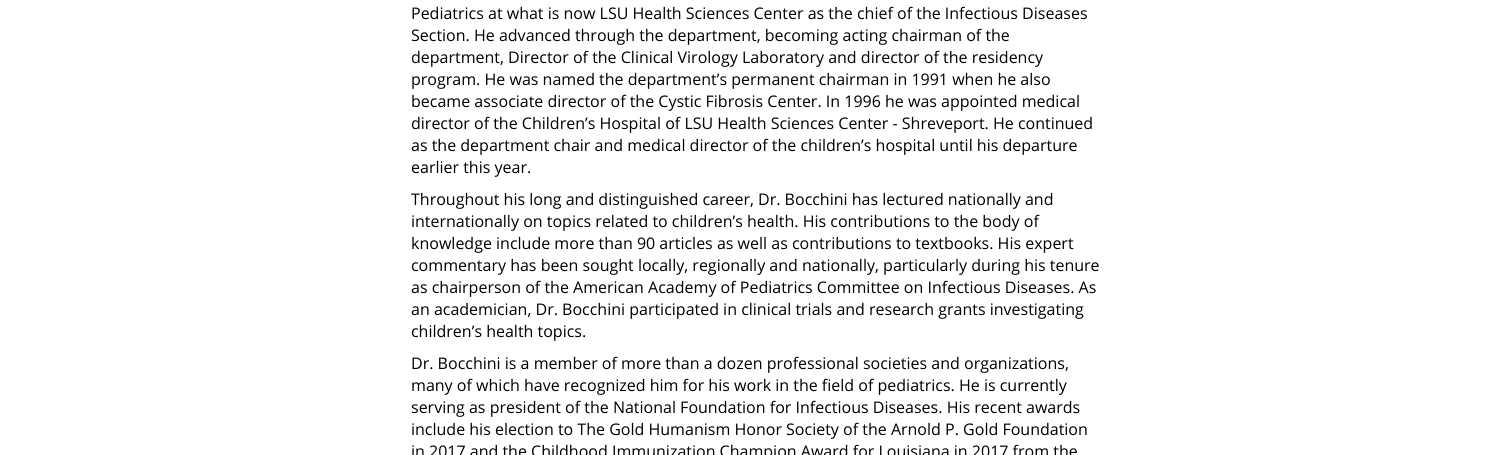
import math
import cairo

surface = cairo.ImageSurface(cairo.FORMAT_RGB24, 1502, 455)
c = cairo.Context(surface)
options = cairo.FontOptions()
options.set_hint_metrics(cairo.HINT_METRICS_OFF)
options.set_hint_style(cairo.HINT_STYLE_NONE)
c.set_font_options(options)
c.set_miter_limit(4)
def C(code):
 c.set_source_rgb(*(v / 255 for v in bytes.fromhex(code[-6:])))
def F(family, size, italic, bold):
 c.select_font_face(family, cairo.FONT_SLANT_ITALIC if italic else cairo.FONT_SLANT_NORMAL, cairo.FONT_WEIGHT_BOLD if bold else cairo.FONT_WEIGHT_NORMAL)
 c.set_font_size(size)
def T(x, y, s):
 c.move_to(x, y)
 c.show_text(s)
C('ffffff')
c.paint()
F('Open Sans',16,0,0)
C('000000')
T(411,19,'Pediatrics at what is now LSU Health Sciences Center as the chief of the Infectious Diseases')
T(411,41,'Section. He advanced through the department, becoming acting chairman of the')
T(411,63,'department, Director of the Clinical Virology Laboratory and director of the residency')
T(411,85,'program. He was named the department’s permanent chairman in 1991 when he also')
T(411,107,'became associate director of the Cystic Fibrosis Center. In 1996 he was appointed medical')
T(411,129,'director of the Children’s Hospital of LSU Health Sciences Center - Shreveport. He continued')
T(411,151,'as the department chair and medical director of the children’s hospital until his departure')
T(411,173,'earlier this year.')
T(411,205,'Throughout his long and distinguished career, Dr. Bocchini has lectured nationally and')
T(411,227,'internationally on topics related to children’s health. His contributions to the body of')
T(411,249,'knowledge include more than 90 articles as well as contributions to textbooks. His expert')
T(411,271,'commentary has been sought locally, regionally and nationally, particularly during his tenure')
T(411,293,'as chairperson of the American Academy of Pediatrics Committee on Infectious Diseases. As')
T(411,315,'an academician, Dr. Bocchini participated in clinical trials and research grants investigating')
T(411,337,'children’s health topics.')
T(411,369,'Dr. Bocchini is a member of more than a dozen professional societies and organizations,')
T(411,391,'many of which have recognized him for his work in the field of pediatrics. He is currently')
T(411,413,'serving as president of the National Foundation for Infectious Diseases. His recent awards')
T(411,435,'include his election to The Gold Humanism Honor Society of the Arnold P. Gold Foundation')
T(411,457,'in 2017 and the Childhood Immunization Champion Award for Louisiana in 2017 from the')
surface.write_to_png('o.png')
